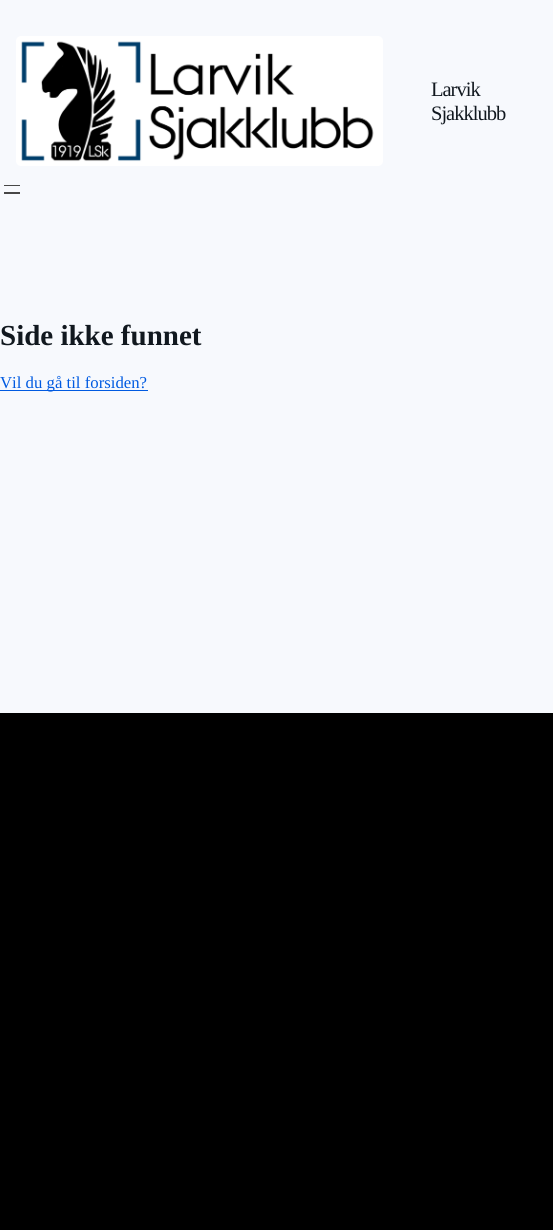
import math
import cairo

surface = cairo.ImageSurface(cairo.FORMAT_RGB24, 553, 1230)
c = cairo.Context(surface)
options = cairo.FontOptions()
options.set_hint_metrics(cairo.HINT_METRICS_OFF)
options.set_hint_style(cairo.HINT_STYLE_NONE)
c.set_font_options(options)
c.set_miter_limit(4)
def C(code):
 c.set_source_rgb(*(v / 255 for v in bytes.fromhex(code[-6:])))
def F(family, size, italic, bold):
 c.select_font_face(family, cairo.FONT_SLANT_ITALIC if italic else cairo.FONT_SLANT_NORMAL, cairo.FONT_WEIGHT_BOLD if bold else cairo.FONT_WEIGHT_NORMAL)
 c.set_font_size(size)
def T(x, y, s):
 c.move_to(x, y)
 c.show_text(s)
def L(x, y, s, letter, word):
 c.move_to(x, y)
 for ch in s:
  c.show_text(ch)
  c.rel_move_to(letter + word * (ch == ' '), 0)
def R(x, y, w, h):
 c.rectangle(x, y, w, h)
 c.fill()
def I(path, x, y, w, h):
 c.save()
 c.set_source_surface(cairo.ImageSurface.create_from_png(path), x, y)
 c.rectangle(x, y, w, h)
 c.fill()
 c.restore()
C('f7f9fd')
c.paint()
I('1.png',16,36,367,130)
F('Liberation Serif',20.5,0,0)
C('11181f')
L(431,96,'Larvik',-1,0)
L(431,120,'Sjakklubb',-1,0)
C('474747')
R(4,185,16,1)
R(4,192,16,2)
F('Liberation Serif',29,0,1)
C('11181f')
T(0,345,'Side ikke funnet')
C('005ae1')
R(0,390,148,1)
F('Liberation Serif',16.75,0,0)
T(0,388,'Vil du gå til forsiden?')
C('000000')
R(0,713,553,517)
surface.write_to_png('o.png')
